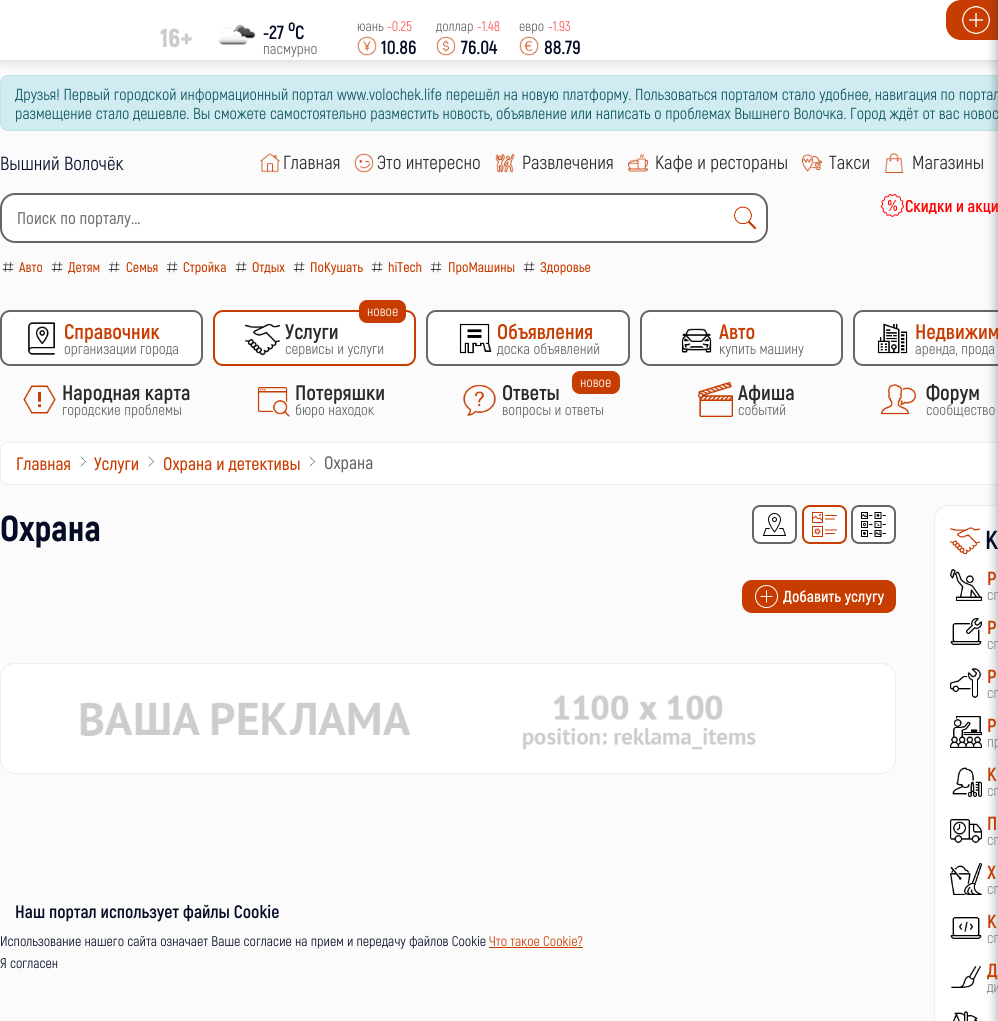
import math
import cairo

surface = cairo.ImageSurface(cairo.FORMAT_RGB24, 998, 1021)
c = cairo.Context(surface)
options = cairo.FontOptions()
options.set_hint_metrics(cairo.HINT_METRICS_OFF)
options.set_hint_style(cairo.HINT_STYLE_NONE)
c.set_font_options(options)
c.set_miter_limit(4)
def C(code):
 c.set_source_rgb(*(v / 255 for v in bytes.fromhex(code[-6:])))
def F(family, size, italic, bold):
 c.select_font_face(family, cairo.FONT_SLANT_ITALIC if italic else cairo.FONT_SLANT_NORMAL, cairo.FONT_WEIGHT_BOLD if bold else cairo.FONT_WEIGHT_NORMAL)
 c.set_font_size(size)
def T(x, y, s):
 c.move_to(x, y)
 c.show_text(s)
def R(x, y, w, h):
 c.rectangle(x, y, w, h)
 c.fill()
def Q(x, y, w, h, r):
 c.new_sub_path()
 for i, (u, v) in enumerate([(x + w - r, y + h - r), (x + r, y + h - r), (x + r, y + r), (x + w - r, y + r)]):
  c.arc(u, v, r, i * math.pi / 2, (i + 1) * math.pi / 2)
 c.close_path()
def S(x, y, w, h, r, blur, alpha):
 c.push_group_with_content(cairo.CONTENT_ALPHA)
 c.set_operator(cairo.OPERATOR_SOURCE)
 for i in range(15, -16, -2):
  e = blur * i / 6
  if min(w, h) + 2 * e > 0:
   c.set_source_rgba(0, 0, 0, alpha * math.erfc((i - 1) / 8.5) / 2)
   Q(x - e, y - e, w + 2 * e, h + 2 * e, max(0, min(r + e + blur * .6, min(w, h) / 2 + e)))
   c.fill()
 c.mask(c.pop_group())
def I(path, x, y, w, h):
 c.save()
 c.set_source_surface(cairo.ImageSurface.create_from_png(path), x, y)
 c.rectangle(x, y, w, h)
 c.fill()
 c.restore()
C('fbfbfb')
c.paint()
C('323232')
S(0,0,998,60,0,6,.25)
C('ffffff')
R(0,0,998,60)
C('c73c00')
Q(946,0,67,40,15)
c.fill()
I('5.png',962,6,28,28)
C('d1ecf1')
Q(.5,75.5,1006,55,7.5)
c.fill_preserve()
C('bee5eb')
c.set_line_width(1)
c.stroke()
C('ffffff')
Q(854,311,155,54,9)
c.fill_preserve()
C('666666')
c.set_line_width(2)
c.stroke()
C('ffffff')
Q(.5,442.5,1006,42,7.5)
c.fill_preserve()
C('eeeeee')
c.set_line_width(1)
c.stroke()
C('ffffff')
Q(934.5,505.5,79,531,14.5)
c.fill_preserve()
C('eeeeee')
c.stroke()
I('33.png',950,569,32,32)
I('34.png',950,618,32,27)
I('35.png',950,668,31,30)
I('36.png',950,716,32,32)
I('37.png',952,767,30,30)
I('38.png',950,819,32,24)
I('39.png',950,863,32,32)
I('40.png',950,917,32,22)
I('41.png',951,966,30,22)
C('323232')
S(996,0,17,1021,0,5,.2)
F('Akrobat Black',26,0,0)
C('cccccc')
T(160,47,'16+')
I('1.png',218,24,38,21)
F('Akrobat',19,0,1)
C('050c26')
T(263,39,'-27')
F('Akrobat',16,0,1)
T(288,31,'o')
F('Akrobat',19,0,1)
T(295,39,'C')
F('Akrobat',15,0,0)
C('666666')
T(263,54,'пасмурно')
F('Akrobat',14,0,0)
T(357,31,'юань')
C('ff5555')
T(387,31,'-0.25')
I('2.png',357,36,20,20)
F('Akrobat',19,0,1)
C('050c26')
T(381,54,'10.86')
F('Akrobat',14,0,0)
C('666666')
T(436,31,'доллар')
C('ff5555')
T(477,31,'-1.48')
I('3.png',436,36,20,20)
F('Akrobat',19,0,1)
C('050c26')
T(461,54,'76.04')
F('Akrobat',14,0,0)
C('666666')
T(519,31,'евро')
C('ff5555')
T(548,31,'-1.93')
I('4.png',519,36,20,20)
F('Akrobat',19,0,1)
C('050c26')
T(544,54,'88.79')
C('323232')
S(996,0,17,1021,0,5,.2)
F('Akrobat',16,0,0)
C('0c5460')
T(15,100,'Друзья! Первый городской информационный портал www.volochek.life перешёл на новую платформу. Пользоваться порталом стало удобнее, навигация по портал')
T(15,119,'размещение стало дешевле. Вы сможете самостоятельно разместить новость, объявление или написать о проблемах Вышнего Волочка. Город ждёт от вас новос')
F('Akrobat',19,0,0)
C('050c26')
T(0,170,'Вышний Волочёк')
I('6.png',260,153,20,20)
C('2a2a2a')
T(283,169,'Главная')
I('7.png',354,153,20,20)
T(377,169,'Это интересно')
I('8.png',495,153,20,20)
T(522,169,'Развлечения')
I('9.png',628,153,20,19)
T(655,169,'Кафе и рестораны')
I('10.png',802,154,20,18)
T(829,169,'Такси')
I('11.png',884,153,20,20)
T(912,169,'Магазины')
I('12.png',880,194,24,23)
F('Akrobat',17,0,1)
C('ff0000')
T(905,212,'Скидки и акци')
C('ffffff')
Q(1,194,766,48,14)
c.fill_preserve()
C('666666')
c.set_line_width(2)
c.stroke()
F('Akrobat SemiBold',17,0,0)
C('757575')
T(17,224,'Поиск по порталу...')
I('13.png',734,206,23,24)
I('14.png',2,261,12,12)
F('Akrobat SemiBold',14,0,0)
C('c73c00')
T(19,272,'Авто')
I('14.png',51,261,12,12)
T(68,272,'Детям')
I('14.png',108,261,12,12)
T(126,272,'Семья')
I('14.png',166,261,12,12)
T(183,272,'Стройка')
I('14.png',235,261,12,12)
T(252,272,'Отдых')
I('14.png',293,261,12,12)
T(310,272,'ПоКушать')
I('14.png',371,261,12,12)
T(388,272,'hiTech')
I('14.png',430,261,12,12)
T(448,272,'ПроМашины')
I('14.png',523,261,12,12)
T(540,272,'Здоровье')
C('ffffff')
Q(1,311,201,54,9)
c.fill_preserve()
C('666666')
c.stroke()
I('15.png',28,322,27,33)
F('Akrobat',21,0,1)
C('c73c00')
T(64,339,'Справочник')
F('Akrobat',15,0,0)
C('666666')
T(64,354,'организации города')
C('ffffff')
Q(214,311,201,54,9)
c.fill_preserve()
C('c73c00')
c.stroke()
Q(359,300,47,23,8)
c.fill()
F('Akrobat',14,0,0)
C('ffffff')
T(367,316,'новое')
I('16.png',245,323,35,33)
F('Akrobat',21,0,1)
C('2a2a2a')
T(285,339,'Услуги')
F('Akrobat',15,0,0)
C('666666')
T(285,354,'сервисы и услуги')
C('ffffff')
Q(427,311,202,54,9)
c.fill_preserve()
C('666666')
c.stroke()
I('17.png',459,323,33,31)
F('Akrobat',21,0,1)
C('c73c00')
T(497,339,'Объявления')
F('Akrobat',15,0,0)
C('666666')
T(497,354,'доска объявлений')
C('ffffff')
Q(641,311,201,54,9)
c.fill_preserve()
C('666666')
c.stroke()
I('18.png',681,328,31,25)
F('Akrobat',21,0,1)
C('c73c00')
T(719,339,'Авто')
F('Akrobat',15,0,0)
C('666666')
T(719,354,'купить машину')
I('19.png',877,323,31,31)
F('Akrobat',21,0,1)
C('c73c00')
T(915,339,'Недвижим')
F('Akrobat',15,0,0)
C('666666')
T(915,354,'аренда, прода')
I('20.png',23,385,33,29)
F('Akrobat',21,0,1)
C('2a2a2a')
T(62,400,'Народная карта')
F('Akrobat',15,0,0)
C('666666')
T(62,415,'городские проблемы')
I('21.png',257,387,33,30)
F('Akrobat',21,0,1)
C('2a2a2a')
T(295,400,'Потеряшки')
F('Akrobat',15,0,0)
C('666666')
T(295,415,'бюро находок')
I('22.png',463,384,33,32)
C('c73c00')
Q(572,371,48,23,8)
c.fill()
F('Akrobat',14,0,0)
C('ffffff')
T(580,387,'новое')
F('Akrobat',21,0,1)
C('2a2a2a')
T(502,400,'Ответы')
F('Akrobat',15,0,0)
C('666666')
T(502,415,'вопросы и ответы')
I('23.png',698,382,35,35)
F('Akrobat',21,0,1)
C('2a2a2a')
T(738,400,'Афиша')
F('Akrobat',15,0,0)
C('666666')
T(738,415,'событий')
I('24.png',881,384,35,31)
F('Akrobat',21,0,1)
C('2a2a2a')
T(926,400,'Форум')
F('Akrobat',15,0,0)
C('666666')
T(926,415,'сообщество')
F('Akrobat SemiBold',18,0,0)
C('c73c00')
T(16,470,'Главная')
I('25.png',80,456,6,11)
T(94,470,'Услуги')
I('25.png',148,456,6,11)
T(163,470,'Охрана и детективы')
I('26.png',309,456,6,11)
C('666666')
T(324,469,'Охрана')
F('Akrobat ExtraBold',36,0,0)
C('050c26')
T(0,541,'Охрана')
C('ffffff')
Q(753,506,43,37,7)
c.fill_preserve()
C('666666')
c.stroke()
I('27.png',762,513,25,23)
C('ffffff')
Q(803,506,43,37,7)
c.fill_preserve()
C('c73c00')
c.stroke()
I('28.png',812,512,25,25)
C('ffffff')
Q(852,506,43,37,7)
c.fill_preserve()
C('666666')
c.stroke()
I('29.png',861,512,25,25)
C('c73c00')
Q(743,581,152,31,9)
c.fill_preserve()
c.stroke()
I('30.png',755,585,23,23)
F('Akrobat',16,0,1)
C('ffffff')
T(783,602,'Добавить услугу')
Q(.5,663.5,895,110,14.5)
c.fill_preserve()
C('eeeeee')
c.set_line_width(1)
c.stroke()
I('31.png',80,695,676,55)
I('32.png',950,527,30,28)
F('Akrobat',26,0,1)
C('050c26')
T(985,549,'К')
F('Akrobat',19,0,1)
C('c73c00')
T(987,585,'Р')
F('Akrobat Light',15,0,0)
C('666666')
T(987,600,'сп')
F('Akrobat',19,0,1)
C('c73c00')
T(987,634,'Р')
F('Akrobat Light',15,0,0)
C('666666')
T(987,649,'сп')
F('Akrobat',19,0,1)
C('c73c00')
T(987,683,'Р')
F('Akrobat Light',15,0,0)
C('666666')
T(987,698,'сп')
F('Akrobat',19,0,1)
C('c73c00')
T(987,732,'Р')
F('Akrobat Light',15,0,0)
C('666666')
T(987,747,'пр')
F('Akrobat',19,0,1)
C('c73c00')
T(987,781,'К')
F('Akrobat Light',15,0,0)
C('666666')
T(987,796,'сп')
F('Akrobat',19,0,1)
C('c73c00')
T(987,830,'П')
F('Akrobat Light',15,0,0)
C('666666')
T(987,845,'сп')
F('Akrobat',19,0,1)
C('c73c00')
T(987,879,'Х')
F('Akrobat Light',15,0,0)
C('666666')
T(987,894,'сп')
F('Akrobat',19,0,1)
C('c73c00')
T(987,928,'К')
F('Akrobat Light',15,0,0)
C('666666')
T(987,943,'сп')
F('Akrobat',19,0,1)
C('c73c00')
T(987,977,'Д')
F('Akrobat Light',15,0,0)
C('666666')
T(987,992,'ди')
I('42.png',953,1011,25,10)
F('Akrobat',18,0,1)
C('050c26')
T(15,918,'Наш портал использует файлы Cookie')
F('Akrobat',14,0,0)
T(0,946,'Использование нашего сайта означает Ваше согласие на прием и передачу файлов Cookie')
C('c73c00')
T(489,946,'Что такое Cookie?')
R(489,947,94,1)
C('050c26')
T(0,968,'Я согласен')
surface.write_to_png('o.png')
